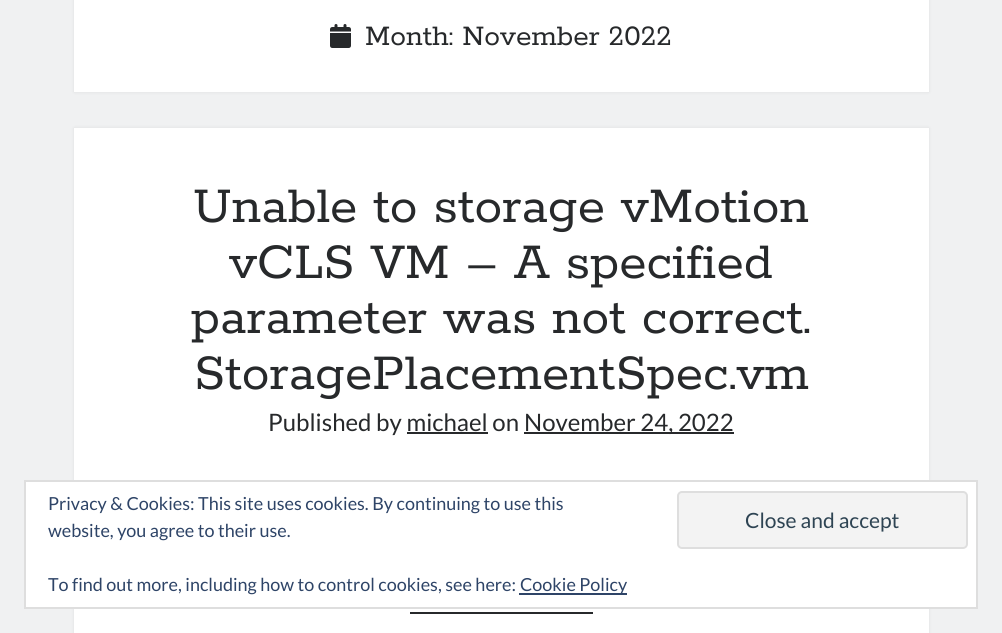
import math
import cairo

surface = cairo.ImageSurface(cairo.FORMAT_RGB24, 1002, 633)
c = cairo.Context(surface)
options = cairo.FontOptions()
options.set_hint_metrics(cairo.HINT_METRICS_OFF)
options.set_hint_style(cairo.HINT_STYLE_NONE)
c.set_font_options(options)
c.set_miter_limit(4)
def C(code):
 c.set_source_rgb(*(v / 255 for v in bytes.fromhex(code[-6:])))
def F(family, size, italic, bold):
 c.select_font_face(family, cairo.FONT_SLANT_ITALIC if italic else cairo.FONT_SLANT_NORMAL, cairo.FONT_WEIGHT_BOLD if bold else cairo.FONT_WEIGHT_NORMAL)
 c.set_font_size(size)
def T(x, y, s):
 c.move_to(x, y)
 c.show_text(s)
def R(x, y, w, h):
 c.rectangle(x, y, w, h)
 c.fill()
def Q(x, y, w, h, r):
 c.new_sub_path()
 for i, (u, v) in enumerate([(x + w - r, y + h - r), (x + r, y + h - r), (x + r, y + r), (x + w - r, y + r)]):
  c.arc(u, v, r, i * math.pi / 2, (i + 1) * math.pi / 2)
 c.close_path()
def S(x, y, w, h, r, blur, alpha):
 c.push_group_with_content(cairo.CONTENT_ALPHA)
 c.set_operator(cairo.OPERATOR_SOURCE)
 for i in range(15, -16, -2):
  e = blur * i / 6
  if min(w, h) + 2 * e > 0:
   c.set_source_rgba(0, 0, 0, alpha * math.erfc((i - 1) / 8.5) / 2)
   Q(x - e, y - e, w + 2 * e, h + 2 * e, max(0, min(r + e + blur * .6, min(w, h) / 2 + e)))
   c.fill()
 c.mask(c.pop_group())
def I(path, x, y, w, h):
 c.save()
 c.set_source_surface(cairo.ImageSurface.create_from_png(path), x, y)
 c.rectangle(x, y, w, h)
 c.fill()
 c.restore()
C('f0f1f2')
c.paint()
C('272b2f')
S(74,-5,855,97,0,1.5,.1)
C('ffffff')
R(74,0,855,92)
I('1.png',330,24,21,24)
F('Rokkitt',31.5,0,0)
C('27292b')
T(365,45,'Month: November 2022')
C('272b2f')
S(74,128,855,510,0,1.5,.1)
C('ffffff')
R(74,128,855,505)
F('Rokkitt',55.5,0,0)
C('27292b')
T(193,222,'Unable to storage vMotion')
T(229,278,'vCLS VM – A specified')
T(191,333,'parameter was not correct.')
T(194,389,'StoragePlacementSpec.vm')
F('Lato',24,0,0)
T(268,431,'Published by michael on')
R(407,432,81,2)
R(524,432,210,2)
T(524,431,'November 24, 2022')
R(410,612,183,2)
C('ffffff')
c.rectangle(25,481,952,127)
c.fill_preserve()
C('dedede')
c.stroke()
F('Lato',18,0,0)
C('2e4467')
T(48,510,'Privacy & Cookies: This site uses cookies. By continuing to use this')
T(48,537,'website, you agree to their use.')
C('f3f3f3')
Q(678,492,289,56,4)
c.fill_preserve()
C('dedede')
c.stroke()
F('Lato',21,0,0)
C('2e4453')
T(745,528,'Close and accept')
F('Lato',18,0,0)
C('2e4467')
T(48,591,'To find out more, including how to control cookies, see here:')
R(519,593,108,2)
T(520,591,'Cookie Policy')
surface.write_to_png('o.png')
